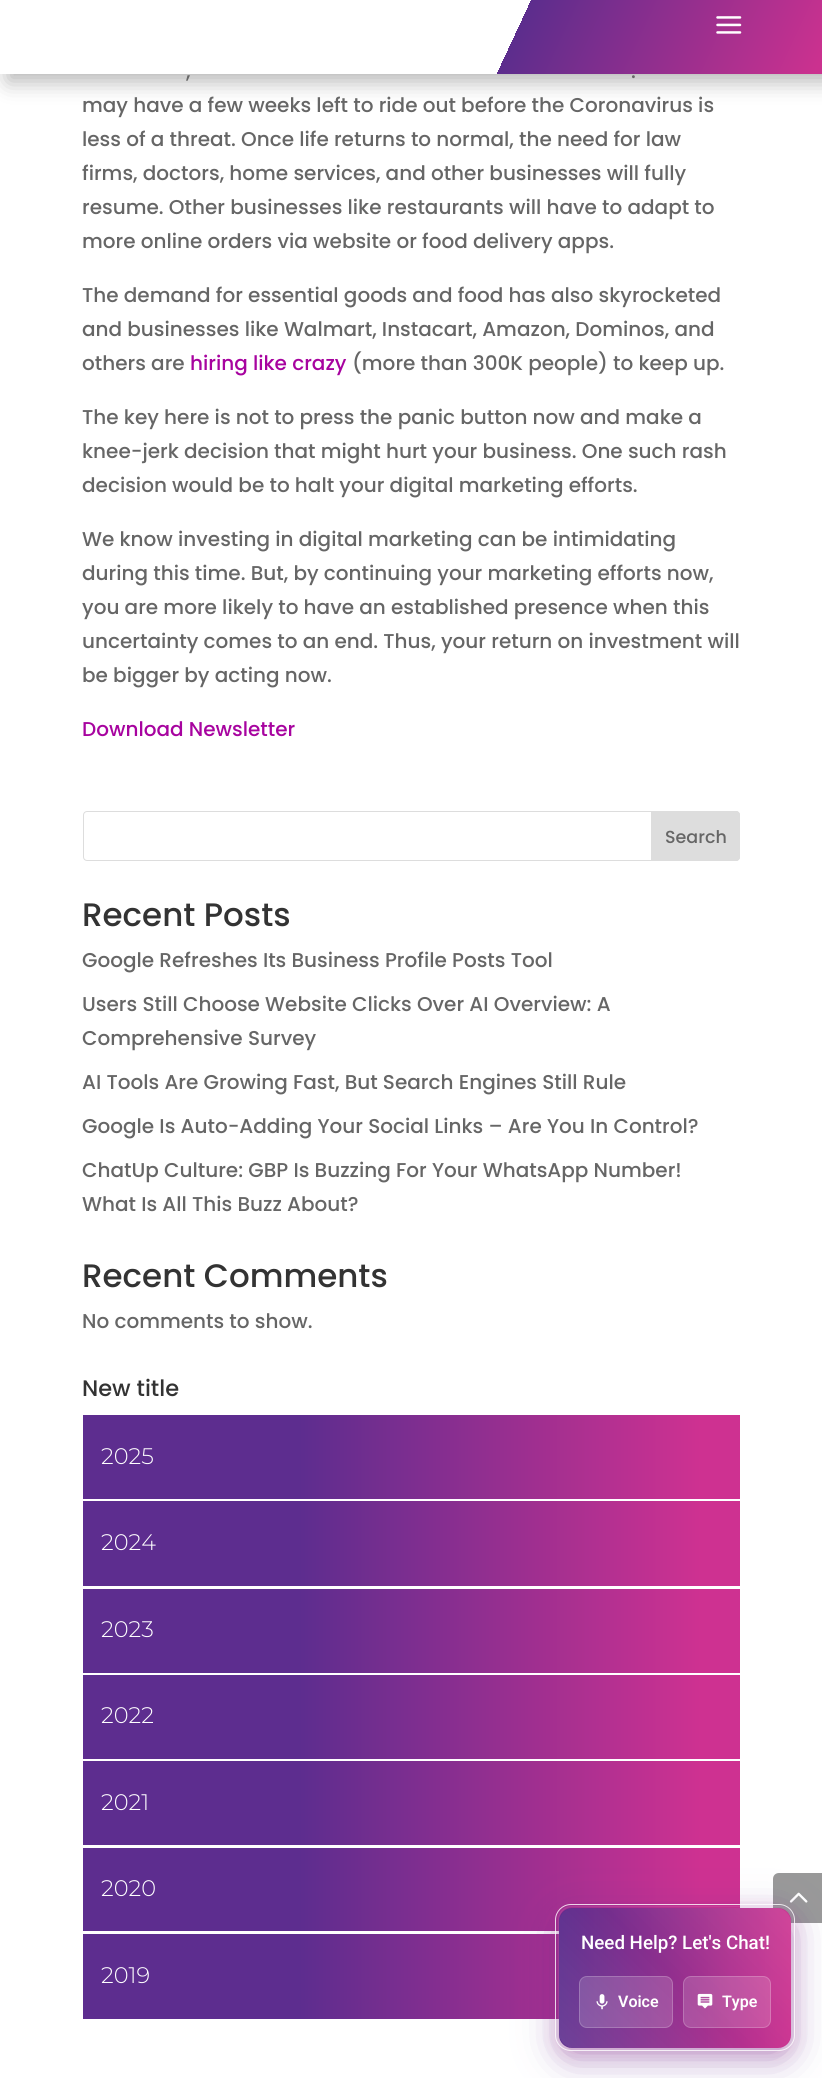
import math
import cairo

surface = cairo.ImageSurface(cairo.FORMAT_RGB24, 822, 2078)
c = cairo.Context(surface)
options = cairo.FontOptions()
options.set_hint_metrics(cairo.HINT_METRICS_OFF)
options.set_hint_style(cairo.HINT_STYLE_NONE)
c.set_font_options(options)
c.set_miter_limit(4)
def C(code):
 c.set_source_rgb(*(v / 255 for v in bytes.fromhex(code[-6:])))
def F(family, size, italic, bold):
 c.select_font_face(family, cairo.FONT_SLANT_ITALIC if italic else cairo.FONT_SLANT_NORMAL, cairo.FONT_WEIGHT_BOLD if bold else cairo.FONT_WEIGHT_NORMAL)
 c.set_font_size(size)
def T(x, y, s):
 c.move_to(x, y)
 c.show_text(s)
def R(x, y, w, h):
 c.rectangle(x, y, w, h)
 c.fill()
def Q(x, y, w, h, r):
 c.new_sub_path()
 for i, (u, v) in enumerate([(x + w - r, y + h - r), (x + r, y + h - r), (x + r, y + r), (x + w - r, y + r)]):
  c.arc(u, v, r, i * math.pi / 2, (i + 1) * math.pi / 2)
 c.close_path()
def S(x, y, w, h, r, blur, alpha):
 c.push_group_with_content(cairo.CONTENT_ALPHA)
 c.set_operator(cairo.OPERATOR_SOURCE)
 for i in range(15, -16, -2):
  e = blur * i / 6
  if min(w, h) + 2 * e > 0:
   c.set_source_rgba(0, 0, 0, alpha * math.erfc((i - 1) / 8.5) / 2)
   Q(x - e, y - e, w + 2 * e, h + 2 * e, max(0, min(r + e + blur * .6, min(w, h) / 2 + e)))
   c.fill()
 c.mask(c.pop_group())
def I(path, x, y, w, h):
 c.save()
 c.set_source_surface(cairo.ImageSurface.create_from_png(path), x, y)
 c.rectangle(x, y, w, h)
 c.fill()
 c.restore()
C('ffffff')
c.paint()
C('000000')
S(8,8,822,73,0,11,.3)
gradient = cairo.LinearGradient(59,-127,763,201)
gradient.add_color_stop_rgba(.62,1,1,1,1)
gradient.add_color_stop_rgba(.62,0.361,0.176,0.553,1)
gradient.add_color_stop_rgba(.99,0.796,0.192,0.561,1)
c.set_source(gradient)
R(0,0,822,74)
I('1.png',716,16,26,18)
F('Poppins Medium',20,0,0)
C('666666')
T(186,78,',')
T(631,78,'.')
T(82,112,'may have a few weeks left to ride out before the Coronavirus is')
T(82,146,'less of a threat. Once life returns to normal, the need for law')
T(82,180,'firms, doctors, home services, and other businesses will fully')
T(82,214,'resume. Other businesses like restaurants will have to adapt to')
T(82,248,'more online orders via website or food delivery apps.')
T(82,302,'The demand for essential goods and food has also skyrocketed')
T(82,336,'and businesses like Walmart, Instacart, Amazon, Dominos, and')
T(82,370,'others are')
C('a7039f')
T(190,370,'hiring like crazy')
C('666666')
T(352,370,'(more than 300K people) to keep up.')
T(82,424,'The key here is not to press the panic button now and make a')
T(82,458,'knee-jerk decision that might hurt your business. One such rash')
T(82,492,'decision would be to halt your digital marketing efforts.')
T(82,546,'We know investing in digital marketing can be intimidating')
T(82,580,'during this time. But, by continuing your marketing efforts now,')
T(82,614,'you are more likely to have an established presence when this')
T(82,648,'uncertainty comes to an end. Thus, your return on investment will')
T(82,682,'be bigger by acting now.')
C('a7039f')
T(82,736,'Download Newsletter')
Q(83.5,811.5,656,49,3.5)
C('dddddd')
c.set_line_width(1)
c.stroke()
c.new_path()
c.move_to(651.5,811.5)
c.line_to(736,811.5)
c.curve_to(738,811.5,739.5,813,739.5,815)
c.line_to(739.5,857)
c.curve_to(739.5,859,738,860.5,736,860.5)
c.line_to(651.5,860.5)
c.close_path()
c.fill_preserve()
c.stroke()
F('Poppins Medium',17.5,0,0)
C('666666')
T(665,843,'Search')
F('Poppins Medium',32.5,0,0)
C('333333')
T(82,926,'Recent Posts')
F('Poppins Medium',20,0,0)
C('666666')
T(82,967,'Google Refreshes Its Business Profile Posts Tool')
T(82,1011,'Users Still Choose Website Clicks Over AI Overview: A')
T(82,1045,'Comprehensive Survey')
T(82,1089,'AI Tools Are Growing Fast, But Search Engines Still Rule')
T(82,1133,'Google Is Auto-Adding Your Social Links – Are You In Control?')
T(82,1177,'ChatUp Culture: GBP Is Buzzing For Your WhatsApp Number!')
T(82,1211,'What Is All This Buzz About?')
F('Poppins Medium',32.5,0,0)
C('333333')
T(82,1287,'Recent Comments')
F('Poppins Medium',20,0,0)
C('666666')
T(82,1328,'No comments to show.')
F('Poppins Medium',22.5,0,0)
C('333333')
T(82,1396,'New title')
gradient = cairo.LinearGradient(83,1457,740,1457)
gradient.add_color_stop_rgba(.33,0.365,0.176,0.561,1)
gradient.add_color_stop_rgba(.94,0.808,0.192,0.569,1)
c.set_source(gradient)
R(83,1415,657,84)
F('Montserrat Light',22.5,0,0)
C('ffffff')
T(101,1464,'2025')
gradient = cairo.LinearGradient(83,1544,740,1544)
gradient.add_color_stop_rgba(.33,0.365,0.176,0.561,1)
gradient.add_color_stop_rgba(.94,0.808,0.192,0.569,1)
c.set_source(gradient)
R(83,1501,657,85)
C('ffffff')
T(101,1550,'2024')
gradient = cairo.LinearGradient(83,1631,740,1631)
gradient.add_color_stop_rgba(.33,0.365,0.176,0.561,1)
gradient.add_color_stop_rgba(.94,0.808,0.192,0.569,1)
c.set_source(gradient)
R(83,1589,657,84)
C('ffffff')
T(101,1637,'2023')
gradient = cairo.LinearGradient(83,1717,740,1717)
gradient.add_color_stop_rgba(.33,0.365,0.176,0.561,1)
gradient.add_color_stop_rgba(.94,0.808,0.192,0.569,1)
c.set_source(gradient)
R(83,1675,657,84)
C('ffffff')
T(101,1723,'2022')
gradient = cairo.LinearGradient(83,1803,740,1803)
gradient.add_color_stop_rgba(.33,0.365,0.176,0.561,1)
gradient.add_color_stop_rgba(.94,0.808,0.192,0.569,1)
c.set_source(gradient)
R(83,1761,657,84)
C('ffffff')
T(101,1810,'2021')
gradient = cairo.LinearGradient(83,1889,740,1889)
gradient.add_color_stop_rgba(.33,0.365,0.176,0.561,1)
gradient.add_color_stop_rgba(.94,0.808,0.192,0.569,1)
c.set_source(gradient)
R(83,1848,657,83)
C('ffffff')
T(101,1896,'2020')
gradient = cairo.LinearGradient(83,1976,740,1976)
gradient.add_color_stop_rgba(.33,0.365,0.176,0.561,1)
gradient.add_color_stop_rgba(.94,0.808,0.192,0.569,1)
c.set_source(gradient)
R(83,1934,476,85)
C('ffffff')
T(101,1983,'2019')
C('999999')
c.new_path()
c.move_to(779,1873)
c.line_to(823,1873)
c.line_to(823,1923)
c.line_to(779,1923)
c.curve_to(775.5,1923,773,1920.5,773,1917)
c.line_to(773,1879)
c.curve_to(773,1875.5,775.5,1873,779,1873)
c.close_path()
c.fill()
I('2.png',789,1892,19,11)
Q(558.5,1906.5,234,142,13.5)
c.set_source_rgba(1,1,1,0.1)
c.stroke()
C('cb318f')
S(559,1913,232,140,13,10,.3)
C('5c2d8d')
S(559,1918,232,140,13,20,.4)
gradient = cairo.LinearGradient(559,1978,791,1978)
gradient.add_color_stop_rgba(0,0.361,0.176,0.553,1)
gradient.add_color_stop_rgba(1,0.796,0.192,0.561,1)
c.set_source(gradient)
Q(559,1908,232,140,13)
c.fill()
Q(555.5,1904.5,239,146,15.5)
c.set_source_rgba(1,1,1,0.8)
c.stroke()
gradient = cairo.LinearGradient(582,2071,768,1884)
gradient.add_color_stop_rgba(0,1,1,1,.1)
gradient.add_color_stop_rgba(.5,1,1,1,0)
gradient.add_color_stop_rgba(1,1,1,1,.1)
c.set_source(gradient)
Q(559,1908,232,140,15)
c.fill()
F('Roboto Medium',18.75,0,0)
C('ffffff')
T(581,1949,'Need Help? Let\'s Chat!')
c.set_source_rgba(1,1,1,0.15)
Q(579,1976,94,52,8)
c.fill()
Q(579.5,1976.5,93,51,7.5)
c.set_source_rgba(1,1,1,0.2)
c.stroke()
I('3.png',596,1994,12,16)
F('Roboto SemiBold',16,0,0)
C('ffffff')
T(618,2007,'Voice')
c.set_source_rgba(1,1,1,0.15)
Q(683,1976,88,52,8)
c.fill()
Q(683.5,1976.5,87,51,7.5)
c.set_source_rgba(1,1,1,0.2)
c.stroke()
I('4.png',697,1993,16,16)
C('ffffff')
T(722,2007,'Type')
surface.write_to_png('o.png')
